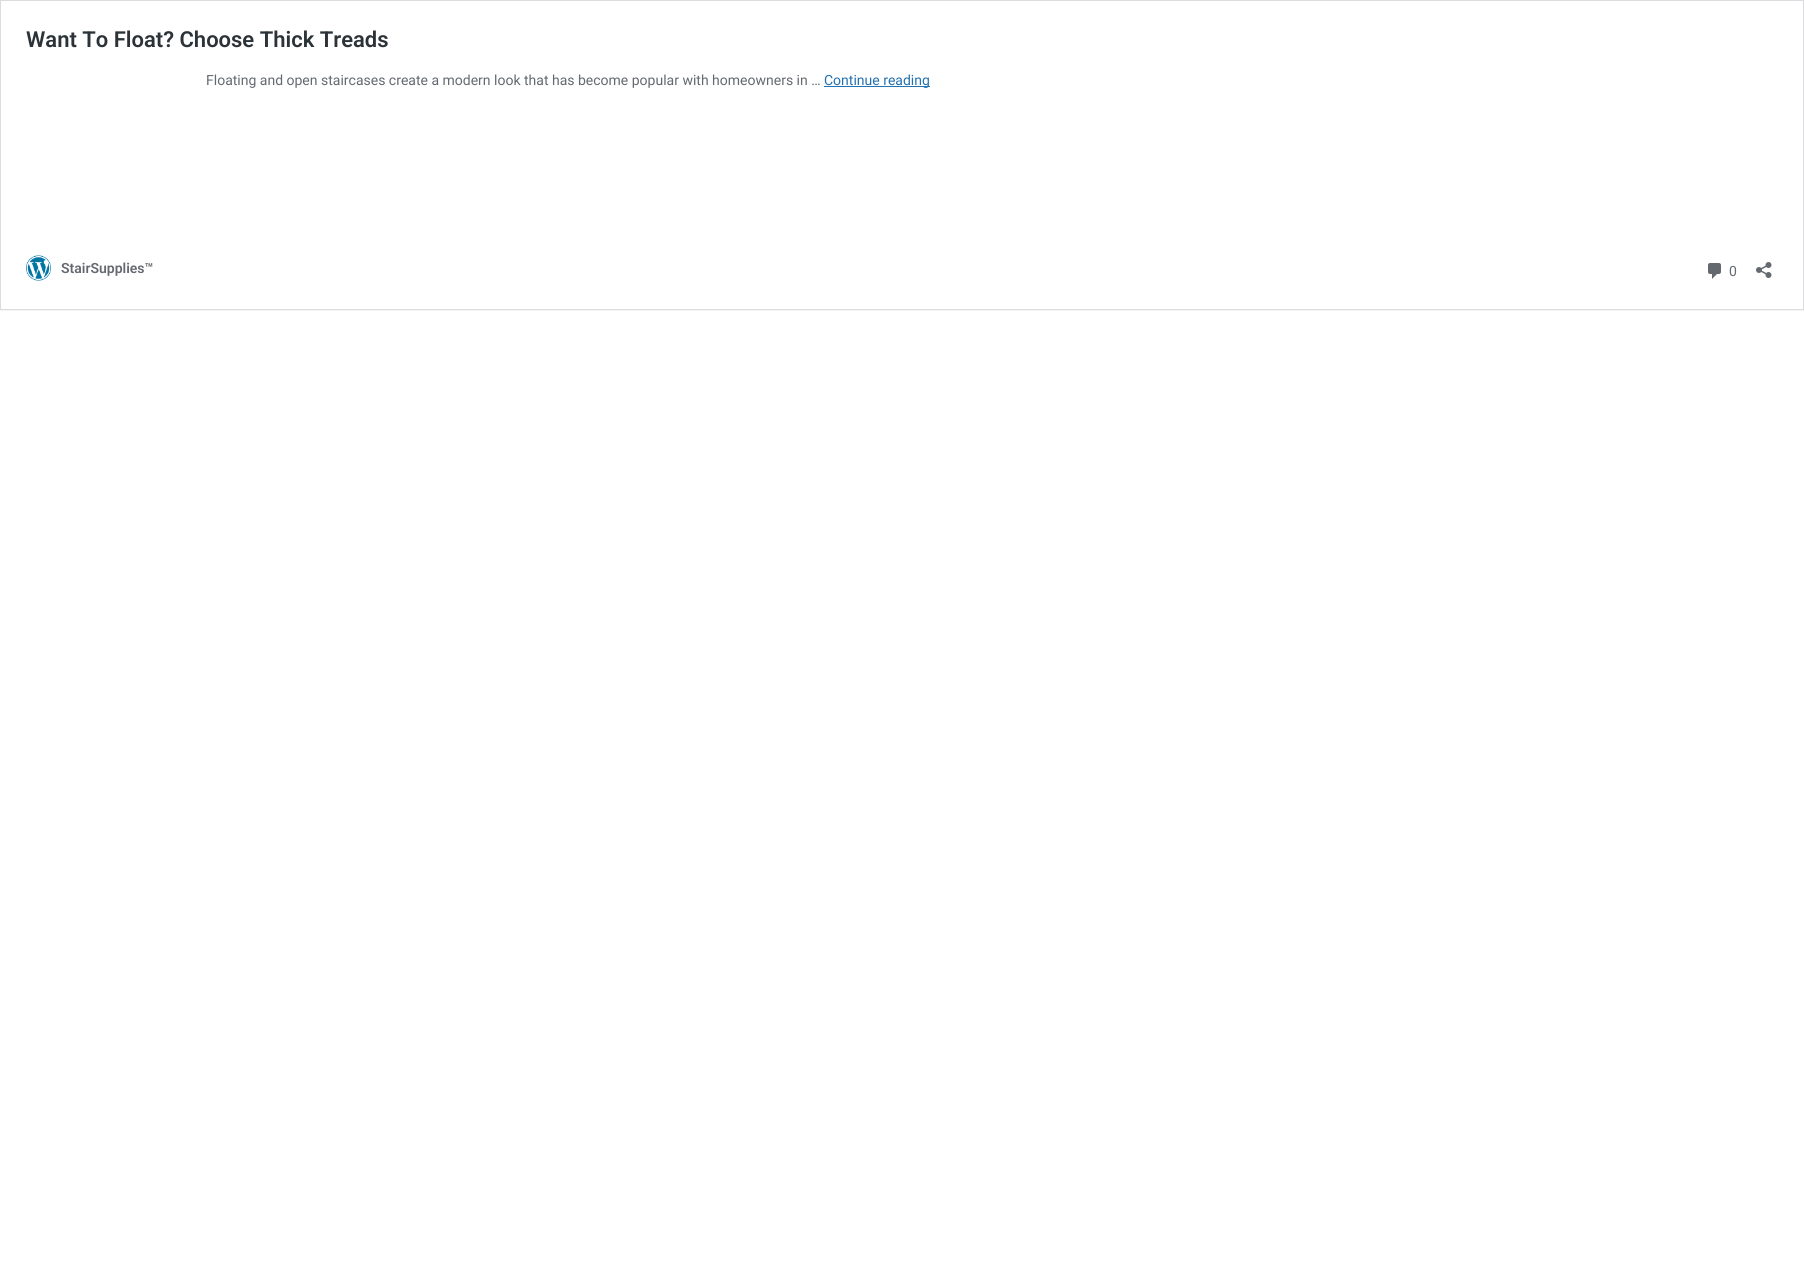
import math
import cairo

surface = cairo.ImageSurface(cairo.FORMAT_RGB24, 1804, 1262)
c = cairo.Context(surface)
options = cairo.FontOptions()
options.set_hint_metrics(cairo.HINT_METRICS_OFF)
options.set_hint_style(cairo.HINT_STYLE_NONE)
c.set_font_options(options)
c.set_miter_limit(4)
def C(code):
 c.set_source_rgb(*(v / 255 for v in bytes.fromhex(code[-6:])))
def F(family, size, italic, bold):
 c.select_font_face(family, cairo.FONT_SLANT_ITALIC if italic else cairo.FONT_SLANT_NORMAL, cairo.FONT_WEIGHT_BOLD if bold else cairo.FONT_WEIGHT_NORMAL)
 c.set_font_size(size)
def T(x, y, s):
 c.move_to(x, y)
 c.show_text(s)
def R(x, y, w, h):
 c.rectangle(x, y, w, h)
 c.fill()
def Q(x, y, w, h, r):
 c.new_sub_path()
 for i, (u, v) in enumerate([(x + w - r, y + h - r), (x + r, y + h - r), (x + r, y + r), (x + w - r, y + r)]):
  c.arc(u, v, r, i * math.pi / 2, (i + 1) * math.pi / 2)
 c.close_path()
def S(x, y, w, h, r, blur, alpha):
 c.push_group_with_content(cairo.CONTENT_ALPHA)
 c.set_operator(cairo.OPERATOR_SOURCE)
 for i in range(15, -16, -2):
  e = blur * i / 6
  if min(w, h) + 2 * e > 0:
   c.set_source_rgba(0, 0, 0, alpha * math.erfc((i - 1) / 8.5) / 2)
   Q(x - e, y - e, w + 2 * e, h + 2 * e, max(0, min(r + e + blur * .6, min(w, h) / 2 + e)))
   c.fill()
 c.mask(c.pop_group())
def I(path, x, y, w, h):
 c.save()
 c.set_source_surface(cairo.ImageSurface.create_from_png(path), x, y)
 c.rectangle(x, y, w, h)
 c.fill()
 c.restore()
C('ffffff')
c.paint()
c.save()
c.rectangle(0,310,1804,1)
c.clip()
C('000000')
S(0,1,1804,310,0,.5,.05)
c.restore()
c.rectangle(.5,.5,1803,309)
C('dcdcde')
c.set_line_width(1)
c.stroke()
F('Roboto SemiBold',22,0,0)
C('2c3338')
T(26,47,'Want To Float? Choose Thick Treads')
F('Roboto',14,0,0)
C('646970')
T(206,85,'Floating and open staircases create a modern look that has become popular with homeowners in …')
C('2271b1')
R(824,86,106,1)
T(824,85,'Continue reading')
I('1.png',26,255,25,26)
F('Roboto SemiBold',14,0,0)
C('646970')
T(61,273,'StairSupplies™')
I('2.png',1708,263,13,16)
F('Roboto',14,0,0)
T(1729,276,'0')
I('3.png',1756,262,16,16)
surface.write_to_png('o.png')
